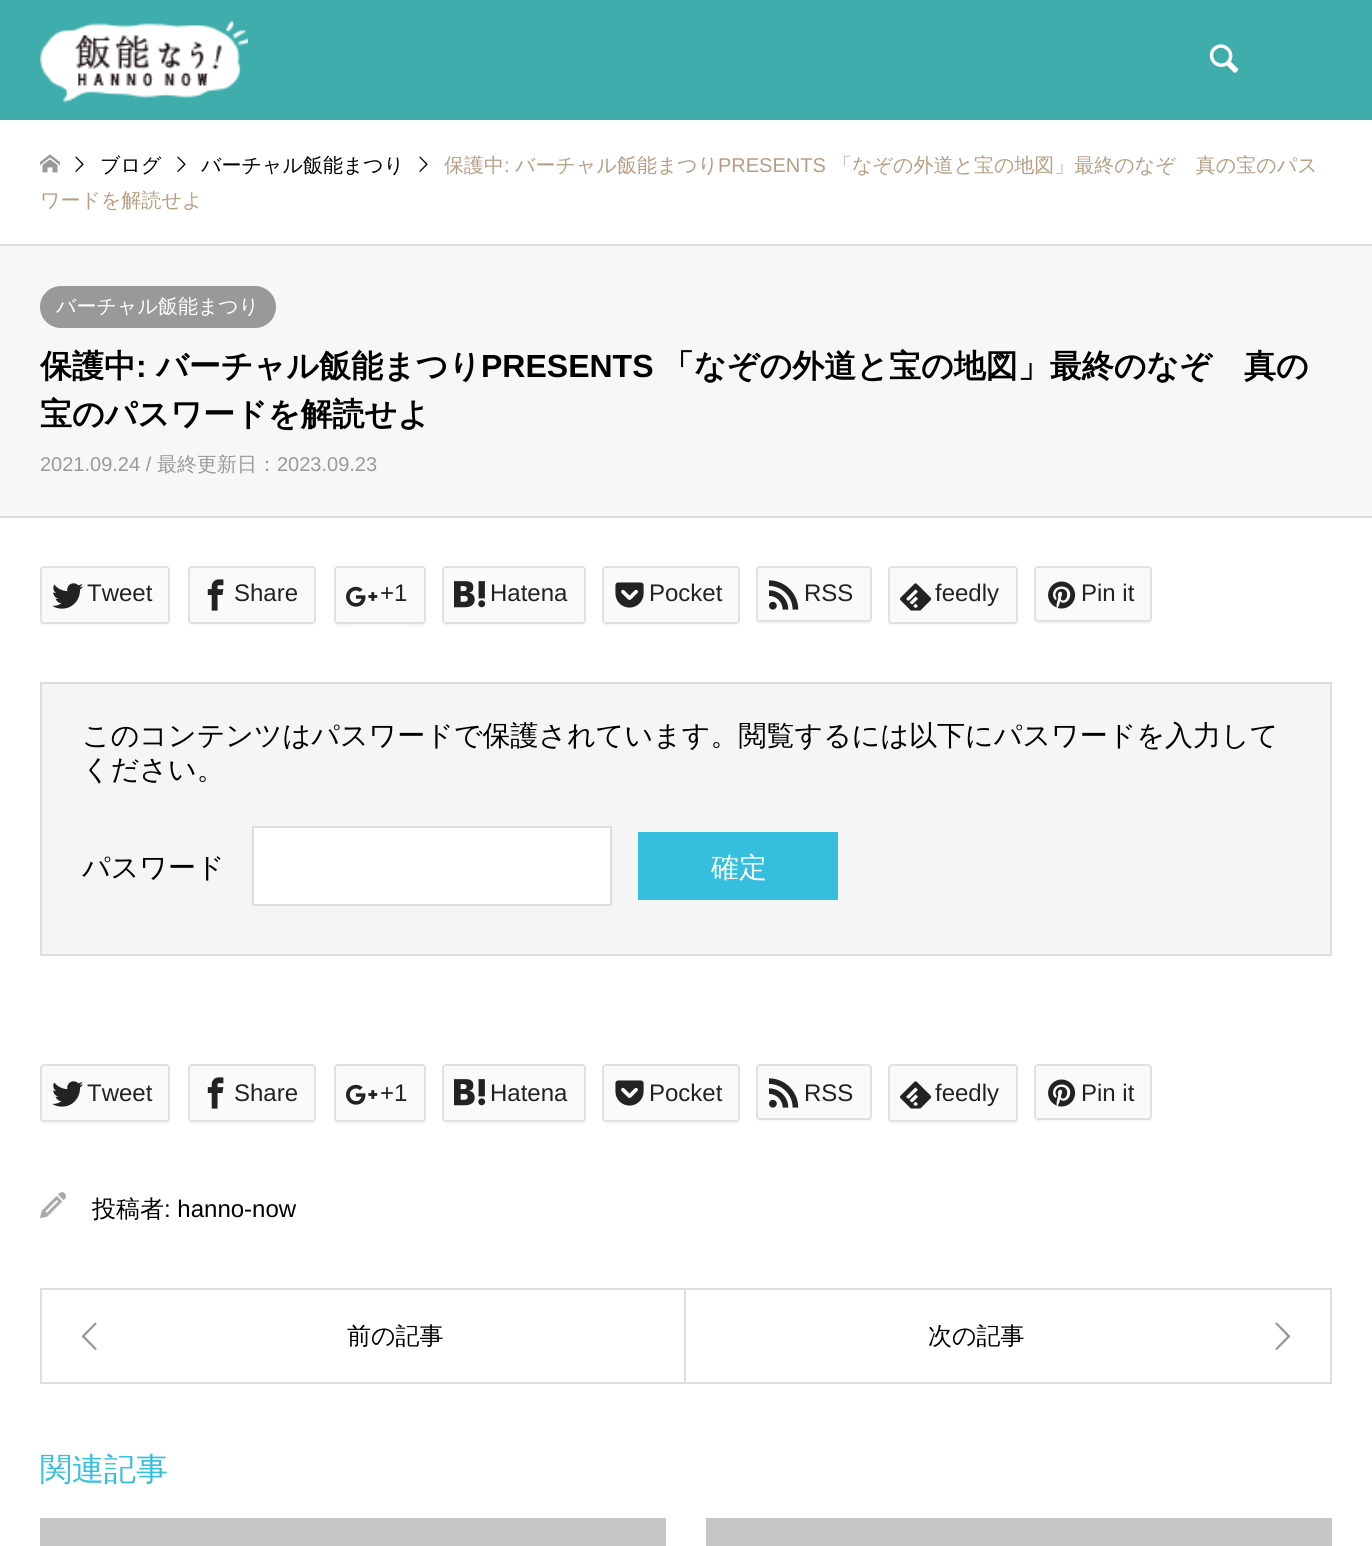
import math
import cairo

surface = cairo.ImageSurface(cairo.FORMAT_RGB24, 1372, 1546)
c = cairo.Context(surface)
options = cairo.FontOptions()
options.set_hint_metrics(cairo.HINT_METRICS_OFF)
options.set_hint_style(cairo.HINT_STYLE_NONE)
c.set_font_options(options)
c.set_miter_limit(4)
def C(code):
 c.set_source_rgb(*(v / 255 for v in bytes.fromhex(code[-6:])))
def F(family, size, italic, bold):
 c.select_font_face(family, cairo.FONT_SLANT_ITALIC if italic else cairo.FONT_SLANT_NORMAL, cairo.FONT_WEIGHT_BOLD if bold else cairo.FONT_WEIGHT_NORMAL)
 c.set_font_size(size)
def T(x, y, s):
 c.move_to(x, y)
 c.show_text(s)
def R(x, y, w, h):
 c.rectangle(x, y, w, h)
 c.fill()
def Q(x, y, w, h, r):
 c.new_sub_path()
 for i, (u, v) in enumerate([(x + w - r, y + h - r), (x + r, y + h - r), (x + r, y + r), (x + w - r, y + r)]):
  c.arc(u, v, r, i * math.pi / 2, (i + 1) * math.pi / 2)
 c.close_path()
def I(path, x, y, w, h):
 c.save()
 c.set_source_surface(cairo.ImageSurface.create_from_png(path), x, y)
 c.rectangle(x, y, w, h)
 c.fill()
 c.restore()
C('ffffff')
c.paint()
C('3eadab')
R(0,0,1372,120)
I('1.png',40,20,208,83)
I('2.png',1209,44,30,29)
C('dddddd')
R(0,244,1372,2)
I('3.png',40,154,20,19)
I('4.png',75,156,9,16)
F('WenQuanYi Zen Hei Medium',20,0,0)
C('000000')
T(100,172,'ブログ')
I('4.png',177,156,9,16)
T(201,172,'バーチャル飯能まつり')
I('4.png',419,156,9,16)
C('b69e84')
T(444,172,'保護中')
F('Liberation Sans',20,0,0)
T(504,172,':')
F('WenQuanYi Zen Hei Medium',20,0,0)
T(515,172,'バーチャル飯能まつり')
F('Liberation Sans',20,0,0)
T(718,172,'PRESENTS')
F('WenQuanYi Zen Hei Medium',20,0,0)
T(832,172,'「なぞの外道と宝の地図」最終のなぞ　真の宝のパス')
T(40,207,'ワードを解読せよ')
C('f7f7f7')
R(0,246,1372,270)
C('dddddd')
R(0,516,1372,2)
C('999999')
Q(40,286,236,42,21)
c.fill()
C('ffffff')
T(56,313,'バーチャル飯能まつり')
F('WenQuanYi Zen Hei',32,0,1)
C('000000')
T(40,377,'保護中')
F('Liberation Sans',32,0,1)
T(136,377,':')
F('WenQuanYi Zen Hei',32,0,1)
T(156,377,'バーチャル飯能まつり')
F('Liberation Sans',32,0,1)
T(481,377,'PRESENTS')
F('WenQuanYi Zen Hei',32,0,1)
T(662,377,'「なぞの外道と宝の地図」最終のなぞ　真の')
T(40,425,'宝のパスワードを解読せよ')
F('Liberation Sans',20,0,0)
C('999999')
T(40,471,'2021.09.24 /')
F('WenQuanYi Zen Hei Medium',20,0,0)
T(157,471,'最終更新日：')
F('Liberation Sans',20,0,0)
T(277,471,'2023.09.23')
C('f7f7f7')
c.new_path()
c.move_to(40,620)
c.line_to(40,622)
c.curve_to(40,624,42,626,44,626)
c.line_to(166,626)
c.curve_to(168,626,170,624,170,622)
c.line_to(170,620)
c.curve_to(170,622,168,624,166,624)
c.line_to(44,624)
c.curve_to(42,624,40,622,40,620)
c.close_path()
c.fill()
C('fafafa')
Q(41,567,128,56,3)
c.fill_preserve()
C('e1e1e1')
c.stroke()
I('5.png',52,583,31,26)
F('Liberation Sans',24,0,0)
C('222222')
T(87,601,'Tweet')
C('f7f7f7')
c.new_path()
c.move_to(188,620)
c.line_to(188,622)
c.curve_to(188,624,190,626,192,626)
c.line_to(312,626)
c.curve_to(314,626,316,624,316,622)
c.line_to(316,620)
c.curve_to(316,622,314,624,312,624)
c.line_to(192,624)
c.curve_to(190,624,188,622,188,620)
c.close_path()
c.fill()
C('fafafa')
Q(189,567,126,56,3)
c.fill_preserve()
C('e1e1e1')
c.stroke()
I('6.png',207,579,17,32)
C('222222')
T(234,601,'Share')
C('f7f7f7')
c.new_path()
c.move_to(334,620)
c.curve_to(334,630,344,626,352,626)
c.line_to(408,626)
c.curve_to(416,626,426,630,426,620)
c.curve_to(426,622,424,624,422,624)
c.line_to(338,624)
c.curve_to(336,624,334,622,334,620)
c.close_path()
c.fill()
C('fafafa')
Q(335,567,90,56,3)
c.fill_preserve()
C('e1e1e1')
c.stroke()
I('7.png',346,586,32,21)
C('222222')
T(380,601,'+1')
C('f7f7f7')
c.new_path()
c.move_to(442,620)
c.line_to(442,622)
c.curve_to(442,624,444,626,446,626)
c.line_to(582,626)
c.curve_to(584,626,586,624,586,622)
c.line_to(586,620)
c.curve_to(586,622,584,624,582,624)
c.line_to(446,624)
c.curve_to(444,624,442,622,442,620)
c.close_path()
c.fill()
C('fafafa')
Q(443,567,142,56,3)
c.fill_preserve()
C('e1e1e1')
c.stroke()
I('8.png',454,581,32,27)
C('222222')
T(490,601,'Hatena')
C('f7f7f7')
c.new_path()
c.move_to(602,620)
c.line_to(602,622)
c.curve_to(602,624,604,626,606,626)
c.line_to(736,626)
c.curve_to(738,626,740,624,740,622)
c.line_to(740,620)
c.curve_to(740,622,738,624,736,624)
c.line_to(606,624)
c.curve_to(604,624,602,622,602,620)
c.close_path()
c.fill()
C('fafafa')
Q(603,567,136,56,3)
c.fill_preserve()
C('e1e1e1')
c.stroke()
I('9.png',615,582,29,26)
C('222222')
T(649,601,'Pocket')
C('f7f7f7')
c.new_path()
c.move_to(756,618)
c.line_to(756,620)
c.curve_to(756,622,758,624,760,624)
c.line_to(868,624)
c.curve_to(870,624,872,622,872,620)
c.line_to(872,618)
c.curve_to(872,620,870,622,868,622)
c.line_to(760,622)
c.curve_to(758,622,756,620,756,618)
c.close_path()
c.fill()
C('fafafa')
Q(757,567,114,54,3)
c.fill_preserve()
C('e1e1e1')
c.stroke()
I('10.png',768,580,31,30)
C('222222')
T(804,601,'RSS')
C('f7f7f7')
c.new_path()
c.move_to(888,620)
c.line_to(888,622)
c.curve_to(888,624,890,626,892,626)
c.line_to(1014,626)
c.curve_to(1016,626,1018,624,1018,622)
c.line_to(1018,620)
c.curve_to(1018,622,1016,624,1014,624)
c.line_to(892,624)
c.curve_to(890,624,888,622,888,620)
c.close_path()
c.fill()
C('fafafa')
Q(889,567,128,56,3)
c.fill_preserve()
C('e1e1e1')
c.stroke()
I('11.png',900,583,32,28)
C('222222')
T(935,601,'feedly')
C('f7f7f7')
c.new_path()
c.move_to(1034,618)
c.line_to(1034,620)
c.curve_to(1034,622,1036,624,1038,624)
c.line_to(1148,624)
c.curve_to(1150,624,1152,622,1152,620)
c.line_to(1152,618)
c.curve_to(1152,620,1150,622,1148,622)
c.line_to(1038,622)
c.curve_to(1036,622,1034,620,1034,618)
c.close_path()
c.fill()
C('fafafa')
Q(1035,567,116,54,3)
c.fill_preserve()
C('e1e1e1')
c.stroke()
I('12.png',1048,581,28,28)
C('222222')
T(1081,601,'Pin it')
C('f5f5f5')
c.rectangle(41,683,1290,272)
c.fill_preserve()
C('dddddd')
c.stroke()
F('WenQuanYi Zen Hei Medium',28,0,0)
C('000000')
T(82,745,'このコンテンツはパスワードで保護されています。閲覧するには以下にパスワードを入力して')
T(82,779,'ください。')
T(82,877,'パスワード')
C('ffffff')
c.rectangle(253,827,358,78)
c.fill_preserve()
C('dddddd')
c.stroke()
C('35bedd')
R(638,832,200,68)
C('ffffff')
T(711,877,'確定')
C('f7f7f7')
c.new_path()
c.move_to(40,1118)
c.line_to(40,1120)
c.curve_to(40,1122,42,1124,44,1124)
c.line_to(166,1124)
c.curve_to(168,1124,170,1122,170,1120)
c.line_to(170,1118)
c.curve_to(170,1120,168,1122,166,1122)
c.line_to(44,1122)
c.curve_to(42,1122,40,1120,40,1118)
c.close_path()
c.fill()
C('fafafa')
Q(41,1065,128,56,3)
c.fill_preserve()
C('e1e1e1')
c.stroke()
I('5.png',52,1081,31,26)
F('Liberation Sans',24,0,0)
C('222222')
T(87,1101,'Tweet')
C('f7f7f7')
c.new_path()
c.move_to(188,1118)
c.line_to(188,1120)
c.curve_to(188,1122,190,1124,192,1124)
c.line_to(312,1124)
c.curve_to(314,1124,316,1122,316,1120)
c.line_to(316,1118)
c.curve_to(316,1120,314,1122,312,1122)
c.line_to(192,1122)
c.curve_to(190,1122,188,1120,188,1118)
c.close_path()
c.fill()
C('fafafa')
Q(189,1065,126,56,3)
c.fill_preserve()
C('e1e1e1')
c.stroke()
I('6.png',207,1077,17,32)
C('222222')
T(234,1101,'Share')
C('f7f7f7')
c.new_path()
c.move_to(334,1118)
c.curve_to(334,1128,344,1124,352,1124)
c.line_to(408,1124)
c.curve_to(416,1124,426,1128,426,1118)
c.curve_to(426,1120,424,1122,422,1122)
c.line_to(338,1122)
c.curve_to(336,1122,334,1120,334,1118)
c.close_path()
c.fill()
C('fafafa')
Q(335,1065,90,56,3)
c.fill_preserve()
C('e1e1e1')
c.stroke()
I('7.png',346,1084,32,21)
C('222222')
T(380,1101,'+1')
C('f7f7f7')
c.new_path()
c.move_to(442,1118)
c.line_to(442,1120)
c.curve_to(442,1122,444,1124,446,1124)
c.line_to(582,1124)
c.curve_to(584,1124,586,1122,586,1120)
c.line_to(586,1118)
c.curve_to(586,1120,584,1122,582,1122)
c.line_to(446,1122)
c.curve_to(444,1122,442,1120,442,1118)
c.close_path()
c.fill()
C('fafafa')
Q(443,1065,142,56,3)
c.fill_preserve()
C('e1e1e1')
c.stroke()
I('8.png',454,1079,32,27)
C('222222')
T(490,1101,'Hatena')
C('f7f7f7')
c.new_path()
c.move_to(602,1118)
c.line_to(602,1120)
c.curve_to(602,1122,604,1124,606,1124)
c.line_to(736,1124)
c.curve_to(738,1124,740,1122,740,1120)
c.line_to(740,1118)
c.curve_to(740,1120,738,1122,736,1122)
c.line_to(606,1122)
c.curve_to(604,1122,602,1120,602,1118)
c.close_path()
c.fill()
C('fafafa')
Q(603,1065,136,56,3)
c.fill_preserve()
C('e1e1e1')
c.stroke()
I('9.png',615,1080,29,26)
C('222222')
T(649,1101,'Pocket')
C('f7f7f7')
c.new_path()
c.move_to(756,1116)
c.line_to(756,1118)
c.curve_to(756,1120,758,1122,760,1122)
c.line_to(868,1122)
c.curve_to(870,1122,872,1120,872,1118)
c.line_to(872,1116)
c.curve_to(872,1118,870,1120,868,1120)
c.line_to(760,1120)
c.curve_to(758,1120,756,1118,756,1116)
c.close_path()
c.fill()
C('fafafa')
Q(757,1065,114,54,3)
c.fill_preserve()
C('e1e1e1')
c.stroke()
I('10.png',768,1078,31,30)
C('222222')
T(804,1101,'RSS')
C('f7f7f7')
c.new_path()
c.move_to(888,1118)
c.line_to(888,1120)
c.curve_to(888,1122,890,1124,892,1124)
c.line_to(1014,1124)
c.curve_to(1016,1124,1018,1122,1018,1120)
c.line_to(1018,1118)
c.curve_to(1018,1120,1016,1122,1014,1122)
c.line_to(892,1122)
c.curve_to(890,1122,888,1120,888,1118)
c.close_path()
c.fill()
C('fafafa')
Q(889,1065,128,56,3)
c.fill_preserve()
C('e1e1e1')
c.stroke()
I('11.png',900,1081,32,28)
C('222222')
T(935,1101,'feedly')
C('f7f7f7')
c.new_path()
c.move_to(1034,1116)
c.line_to(1034,1118)
c.curve_to(1034,1120,1036,1122,1038,1122)
c.line_to(1148,1122)
c.curve_to(1150,1122,1152,1120,1152,1118)
c.line_to(1152,1116)
c.curve_to(1152,1118,1150,1120,1148,1120)
c.line_to(1038,1120)
c.curve_to(1036,1120,1034,1118,1034,1116)
c.close_path()
c.fill()
C('fafafa')
Q(1035,1065,116,54,3)
c.fill_preserve()
C('e1e1e1')
c.stroke()
I('12.png',1048,1079,28,28)
C('222222')
T(1081,1101,'Pin it')
I('13.png',40,1192,26,27)
F('WenQuanYi Zen Hei Medium',24,0,0)
C('000000')
T(92,1217,'投稿者')
F('Liberation Sans',24,0,0)
T(164,1217,': hanno-now')
c.rectangle(41,1289,644,94)
C('dddddd')
c.stroke()
I('14.png',81,1322,16,28)
F('WenQuanYi Zen Hei Medium',24,0,0)
C('000000')
T(347,1344,'前の記事')
C('dddddd')
R(686,1288,646,2)
R(1330,1288,2,96)
R(686,1382,646,2)
C('000000')
T(928,1344,'次の記事')
I('15.png',1275,1322,16,28)
F('WenQuanYi Zen Hei Medium',32,0,0)
C('35bedd')
T(40,1480,'関連記事')
C('c6c6c6')
R(40,1518,626,28)
R(706,1518,626,28)
surface.write_to_png('o.png')
